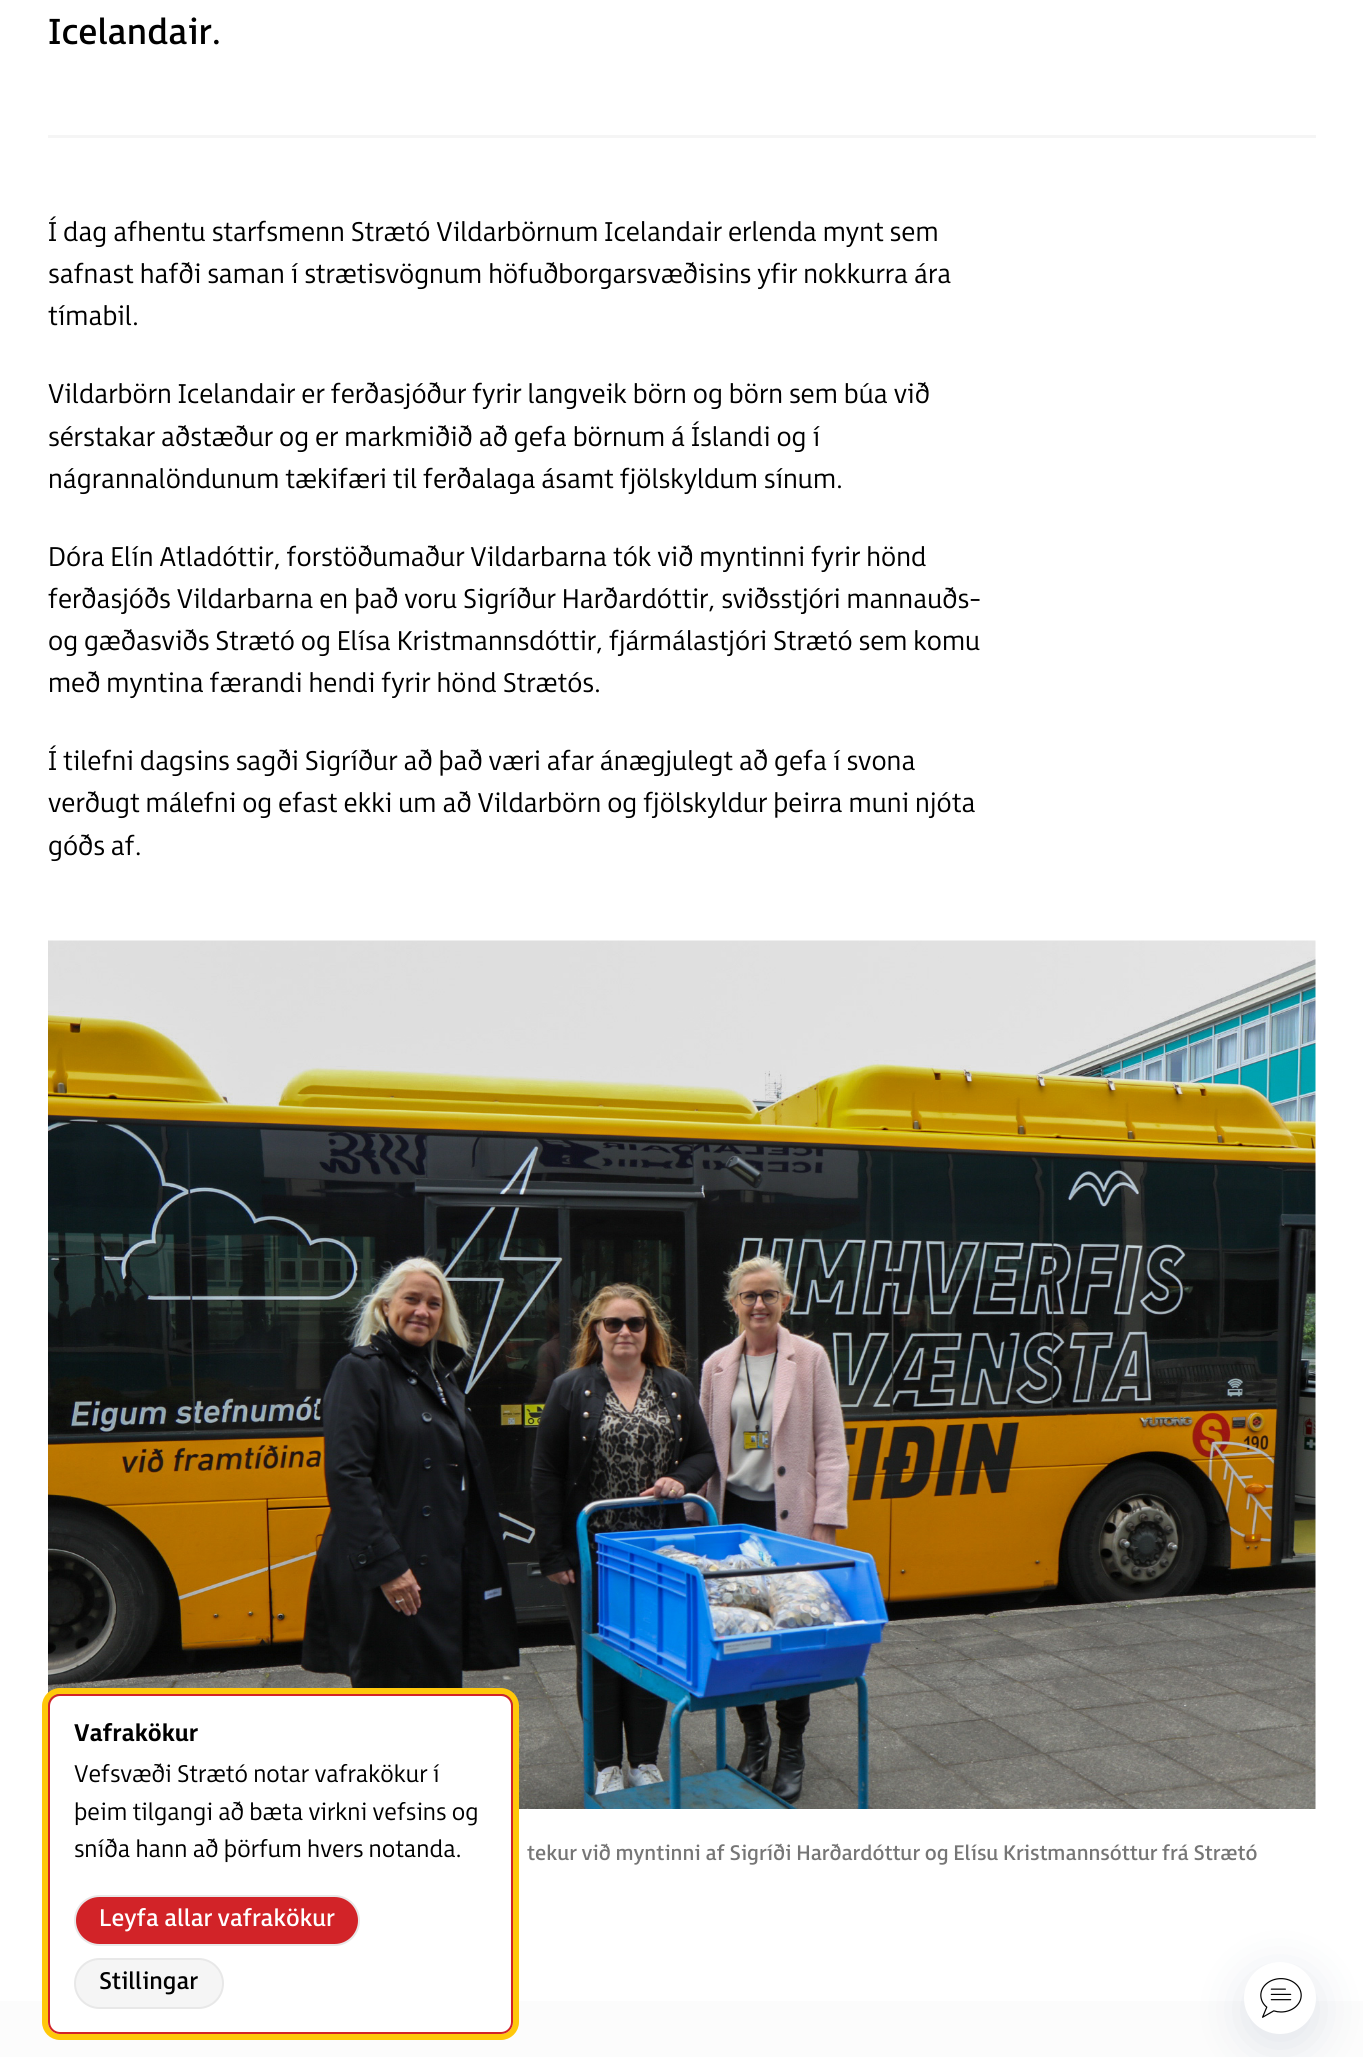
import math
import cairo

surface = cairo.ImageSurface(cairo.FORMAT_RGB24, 1363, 2057)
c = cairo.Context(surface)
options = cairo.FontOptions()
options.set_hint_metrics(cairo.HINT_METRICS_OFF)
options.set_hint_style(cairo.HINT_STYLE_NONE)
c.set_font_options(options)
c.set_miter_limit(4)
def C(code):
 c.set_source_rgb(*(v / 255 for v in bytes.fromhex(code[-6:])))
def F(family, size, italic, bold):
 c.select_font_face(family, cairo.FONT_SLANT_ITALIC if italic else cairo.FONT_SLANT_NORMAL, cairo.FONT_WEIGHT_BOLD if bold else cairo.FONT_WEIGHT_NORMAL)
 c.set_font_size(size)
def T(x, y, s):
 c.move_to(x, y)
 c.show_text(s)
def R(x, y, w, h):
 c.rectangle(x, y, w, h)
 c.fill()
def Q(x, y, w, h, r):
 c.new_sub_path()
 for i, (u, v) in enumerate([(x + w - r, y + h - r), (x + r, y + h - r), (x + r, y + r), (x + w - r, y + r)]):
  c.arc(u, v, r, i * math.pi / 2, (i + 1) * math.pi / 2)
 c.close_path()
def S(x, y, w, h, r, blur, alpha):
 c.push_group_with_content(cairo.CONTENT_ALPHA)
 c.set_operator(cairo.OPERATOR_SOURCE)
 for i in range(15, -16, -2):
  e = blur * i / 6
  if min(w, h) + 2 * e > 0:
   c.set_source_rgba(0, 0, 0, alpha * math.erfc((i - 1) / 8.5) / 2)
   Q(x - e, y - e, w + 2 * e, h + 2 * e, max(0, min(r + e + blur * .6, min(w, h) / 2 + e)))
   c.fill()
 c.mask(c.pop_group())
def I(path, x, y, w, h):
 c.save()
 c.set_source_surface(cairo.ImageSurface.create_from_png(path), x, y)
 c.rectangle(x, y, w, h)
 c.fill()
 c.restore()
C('ffffff')
c.paint()
F('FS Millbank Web',36,0,0)
C('000000')
T(48,44,'Icelandair.')
C('f5f5f5')
R(48,135,1268,3)
F('FS Millbank Web Light',27,0,0)
C('000000')
T(48,241,'Í dag afhentu starfsmenn Strætó Vildarbörnum Icelandair erlenda mynt sem')
T(48,283,'safnast hafði saman í strætisvögnum höfuðborgarsvæðisins yfir nokkurra ára')
T(48,325,'tímabil.')
T(48,403,'Vildarbörn Icelandair er ferðasjóður fyrir langveik börn og börn sem búa við')
T(48,446,'sérstakar aðstæður og er markmiðið að gefa börnum á Íslandi og í')
T(48,488,'nágrannalöndunum tækifæri til ferðalaga ásamt fjölskyldum sínum.')
T(48,566,'Dóra Elín Atladóttir, forstöðumaður Vildarbarna tók við myntinni fyrir hönd')
T(48,608,'ferðasjóðs Vildarbarna en það voru Sigríður Harðardóttir, sviðsstjóri mannauðs-')
T(48,650,'og gæðasviðs Strætó og Elísa Kristmannsdóttir, fjármálastjóri Strætó sem komu')
T(48,692,'með myntina færandi hendi fyrir hönd Strætós.')
T(48,770,'Í tilefni dagsins sagði Sigríður að það væri afar ánægjulegt að gefa í svona')
T(48,812,'verðugt málefni og efast ekki um að Vildarbörn og fjölskyldur þeirra muni njóta')
T(48,855,'góðs af.')
I('1.png',48,940,1268,869)
F('FS Millbank Web',21,0,0)
C('767676')
T(527,1860,'tekur við myntinni af Sigríði Harðardóttur og Elísu Kristmannsóttur frá Strætó')
C('fcfcfc')
R(0,2001,1363,56)
Q(45,1691,471,346,15)
C('ffc80a')
c.set_line_width(6)
c.stroke()
C('ffffff')
Q(49,1695,463,338,11)
c.fill_preserve()
C('d22328')
c.set_line_width(2)
c.stroke()
F('FS Millbank Web',24,0,1)
C('000000')
T(74,1741,'Vafrakökur')
F('FS Millbank Web Light',24,0,0)
T(74,1782,'Vefsvæði Strætó notar vafrakökur í')
T(74,1820,'þeim tilgangi að bæta virkni vefsins og')
T(74,1857,'sníða hann að þörfum hvers notanda.')
C('d22328')
Q(75,1896,284,49,24.5)
c.fill_preserve()
C('e8e8e8')
c.stroke()
F('FS Millbank Web',24,0,0)
C('ffffff')
T(99,1926,'Leyfa allar vafrakökur')
C('f5f5f5')
Q(75,1959,148,49,24.5)
c.fill_preserve()
C('e8e8e8')
c.stroke()
C('000000')
T(99,1989,'Stillingar')
C('204173')
S(1244,1974,72,72,36,24,.13)
C('ffffff')
c.arc(1280,1998,35,0,2 * math.pi)
c.fill_preserve()
c.stroke()
I('2.png',1260,1978,42,40)
surface.write_to_png('o.png')
